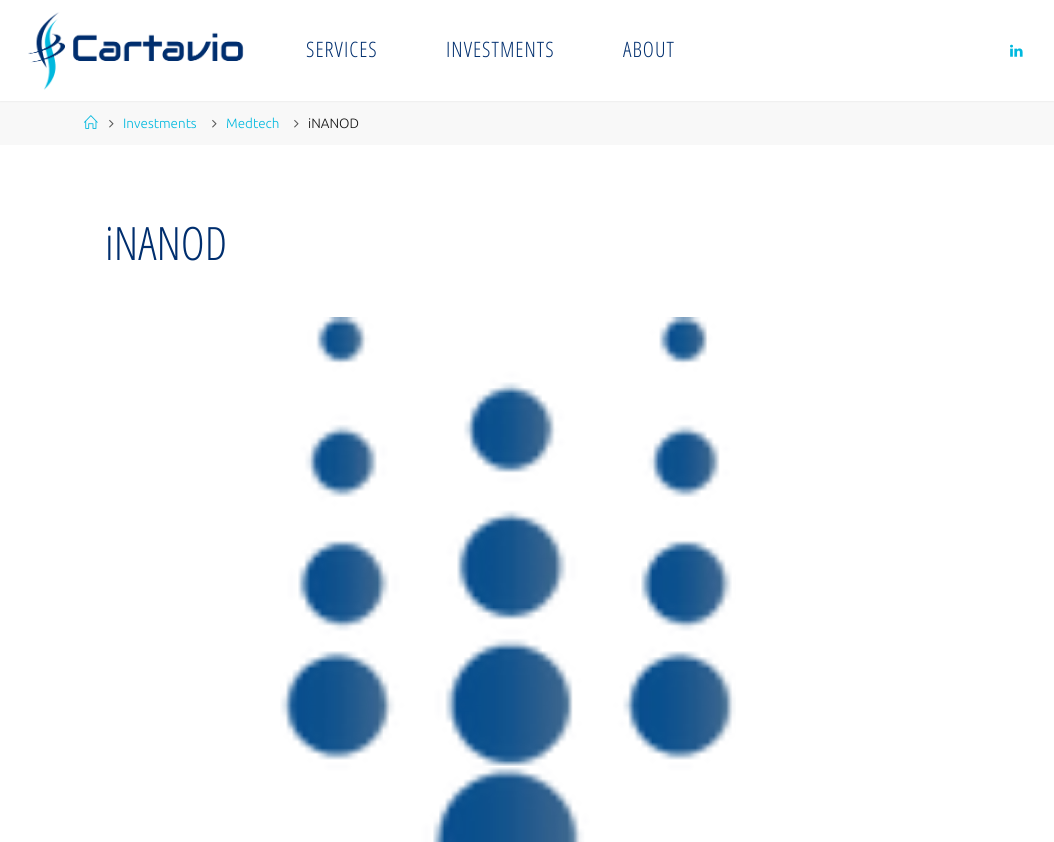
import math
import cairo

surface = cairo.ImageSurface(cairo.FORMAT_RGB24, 1054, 842)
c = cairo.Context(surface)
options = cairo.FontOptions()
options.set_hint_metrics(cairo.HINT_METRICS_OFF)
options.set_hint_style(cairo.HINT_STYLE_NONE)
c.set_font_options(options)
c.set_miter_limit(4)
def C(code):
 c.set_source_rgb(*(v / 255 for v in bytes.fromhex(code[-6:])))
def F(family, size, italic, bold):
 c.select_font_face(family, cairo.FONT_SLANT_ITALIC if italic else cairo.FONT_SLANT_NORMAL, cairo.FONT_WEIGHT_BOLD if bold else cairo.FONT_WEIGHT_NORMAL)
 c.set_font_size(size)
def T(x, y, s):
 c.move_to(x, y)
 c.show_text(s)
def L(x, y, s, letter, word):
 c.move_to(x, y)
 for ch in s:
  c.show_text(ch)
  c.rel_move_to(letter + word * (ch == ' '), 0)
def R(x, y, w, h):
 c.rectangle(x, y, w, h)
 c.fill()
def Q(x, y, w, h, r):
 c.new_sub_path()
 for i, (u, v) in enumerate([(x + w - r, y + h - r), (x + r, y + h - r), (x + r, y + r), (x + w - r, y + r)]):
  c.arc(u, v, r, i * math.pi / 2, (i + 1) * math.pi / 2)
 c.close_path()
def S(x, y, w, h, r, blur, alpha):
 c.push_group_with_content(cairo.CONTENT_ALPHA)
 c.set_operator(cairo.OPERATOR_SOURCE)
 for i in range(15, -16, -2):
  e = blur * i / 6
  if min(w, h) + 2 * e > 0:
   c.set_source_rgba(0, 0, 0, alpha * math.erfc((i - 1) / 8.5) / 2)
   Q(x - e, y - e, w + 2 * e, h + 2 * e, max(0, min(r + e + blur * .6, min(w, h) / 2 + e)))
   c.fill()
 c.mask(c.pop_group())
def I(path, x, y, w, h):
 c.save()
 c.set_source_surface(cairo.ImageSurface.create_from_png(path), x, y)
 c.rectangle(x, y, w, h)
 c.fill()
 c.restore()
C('ffffff')
c.paint()
C('f8f8f8')
R(0,101,1054,44)
C('000000')
S(0,0,1054,100,0,1.5,.2)
C('ffffff')
R(0,0,1054,101)
I('1.png',28,12,216,78)
F('Open Sans Condensed Light',21.25,0,0)
C('002e6e')
L(306,57,'SERVICES',1,0)
L(446,57,'INVESTMENTS',1,0)
L(623,57,'ABOUT',1,0)
I('2.png',1010,44,13,13)
I('3.png',84,115,14,14)
I('4.png',109,119,5,9)
F('Ubuntu Light',13.5,0,0)
C('00b8de')
T(123,128,'Investments')
I('4.png',212,119,5,9)
T(226,128,'Medtech')
I('4.png',294,119,5,9)
C('111111')
T(308,128,'iNANOD')
F('Open Sans Condensed Light',46,0,0)
C('002e6e')
T(105,260,'iNANOD')
I('5.png',280,317,456,525)
surface.write_to_png('o.png')
